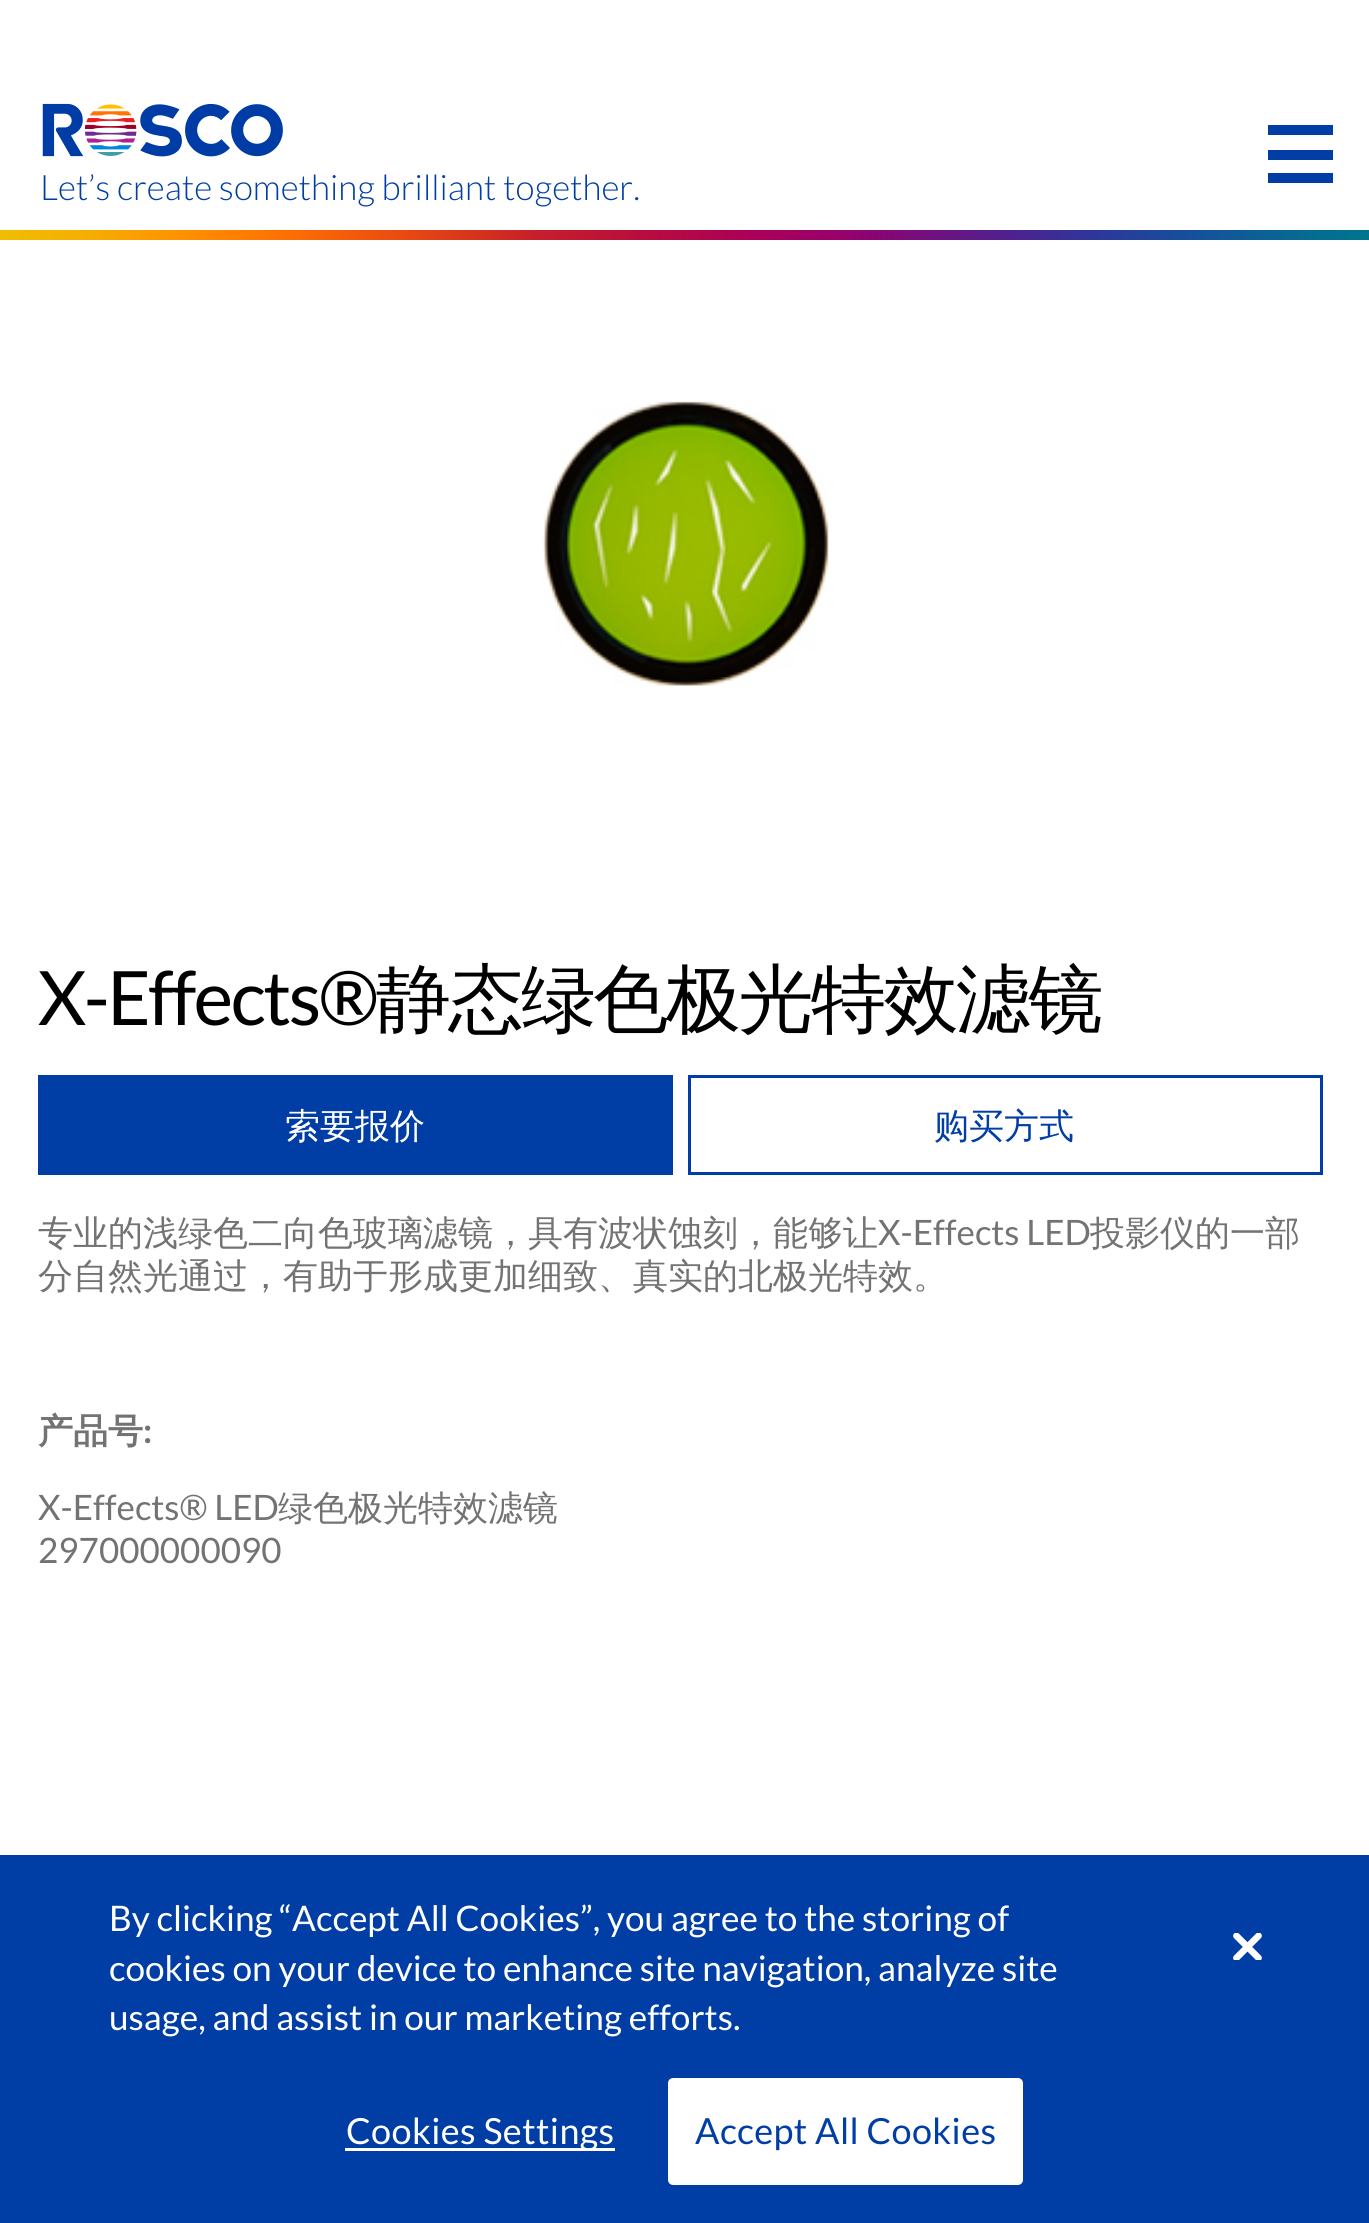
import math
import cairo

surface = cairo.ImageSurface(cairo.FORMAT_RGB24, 1369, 2223)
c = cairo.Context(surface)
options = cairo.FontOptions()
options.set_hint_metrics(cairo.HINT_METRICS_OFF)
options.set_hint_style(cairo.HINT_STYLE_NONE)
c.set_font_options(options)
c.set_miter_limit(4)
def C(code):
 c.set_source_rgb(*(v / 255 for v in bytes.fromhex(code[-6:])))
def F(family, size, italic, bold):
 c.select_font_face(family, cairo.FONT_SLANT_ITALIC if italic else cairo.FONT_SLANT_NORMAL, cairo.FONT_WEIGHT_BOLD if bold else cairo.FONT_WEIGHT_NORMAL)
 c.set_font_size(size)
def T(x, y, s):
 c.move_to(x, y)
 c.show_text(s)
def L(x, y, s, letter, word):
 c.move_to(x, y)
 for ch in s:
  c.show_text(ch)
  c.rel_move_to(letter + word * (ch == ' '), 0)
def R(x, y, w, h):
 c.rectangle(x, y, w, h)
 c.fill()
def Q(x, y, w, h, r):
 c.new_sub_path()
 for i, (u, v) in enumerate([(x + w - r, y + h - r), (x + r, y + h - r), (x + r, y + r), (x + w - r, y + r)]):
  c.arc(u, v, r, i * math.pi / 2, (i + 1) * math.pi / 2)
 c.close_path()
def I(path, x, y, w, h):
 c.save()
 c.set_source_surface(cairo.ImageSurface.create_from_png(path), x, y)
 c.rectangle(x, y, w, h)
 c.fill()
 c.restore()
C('ffffff')
c.paint()
C('003da5')
R(1268,125,65,10)
R(1268,150,65,10)
R(1268,173,65,10)
I('1.png',42,103,241,54)
F('Lato Light',35,0,0)
T(40,200,'Let’s create something brilliant together.')
gradient = cairo.LinearGradient(0,235,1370,235)
gradient.add_color_stop_rgba(0,0.941,0.745,0,1)
gradient.add_color_stop_rgba(.06,0.961,0.686,0,1)
gradient.add_color_stop_rgba(.13,1,0.573,0,1)
gradient.add_color_stop_rgba(.21,0.996,0.435,0.012,1)
gradient.add_color_stop_rgba(.29,0.918,0.298,0.063,1)
gradient.add_color_stop_rgba(.35,0.835,0.196,0.114,1)
gradient.add_color_stop_rgba(.39,0.776,0.125,0.165,1)
gradient.add_color_stop_rgba(.47,0.722,0.051,0.243,1)
gradient.add_color_stop_rgba(.55,0.667,0,0.353,1)
gradient.add_color_stop_rgba(.61,0.6,0,0.416,1)
gradient.add_color_stop_rgba(.64,0.537,0.02,0.455,1)
gradient.add_color_stop_rgba(.74,0.302,0.133,0.565,1)
gradient.add_color_stop_rgba(.8,0.176,0.216,0.608,1)
gradient.add_color_stop_rgba(.87,0.082,0.314,0.608,1)
gradient.add_color_stop_rgba(.95,0.024,0.416,0.573,1)
gradient.add_color_stop_rgba(1,0,0.459,0.557,1)
c.set_source(gradient)
R(0,230,1369,10)
I('2.png',542,401,287,285)
F('Lato',75,0,0)
C('000000')
L(38,1025,'X-Effects®',-2.5,0)
F('WenQuanYi Zen Hei Medium',75,0,0)
L(376,1025,'静态绿色极光特效滤镜',-2.5,0)
C('003da5')
R(38,1075,635,100)
F('WenQuanYi Zen Hei Medium',35,0,0)
C('ffffff')
T(285,1138,'索要报价')
c.rectangle(689.5,1076.5,632,97)
C('003da5')
c.set_line_width(3)
c.stroke()
T(934,1138,'购买方式')
C('737373')
T(38,1245,'专业的浅绿色二向色玻璃滤镜，具有波状蚀刻，能够让')
F('Lato',35,0,0)
T(878,1245,'X-Effects LED')
F('WenQuanYi Zen Hei Medium',35,0,0)
T(1090,1245,'投影仪的一部')
T(38,1288,'分自然光通过，有助于形成更加细致、真实的北极光特效。')
F('WenQuanYi Zen Hei',35,0,1)
T(38,1443,'产品号')
F('Lato',35,0,1)
T(143,1443,':')
F('Lato',35,0,0)
T(38,1520,'X-Effects® LED')
F('WenQuanYi Zen Hei Medium',35,0,0)
T(278,1520,'绿色极光特效滤镜')
F('Lato',35,0,0)
T(38,1563,'297000000090')
C('003da5')
R(0,1855,1369,368)
F('Lato',35.2,0,0)
C('ffffff')
T(109,1931,'By clicking “Accept All Cookies”, you agree to the storing of')
T(109,1981,'cookies on your device to enhance site navigation, analyze site')
T(109,2030,'usage, and assist in our marketing efforts.')
I('3.png',1233,1933,29,27)
R(345,2148,270,3)
F('Lato',36,0,0)
L(346,2144,'Cookies Settings',.4,0)
Q(669.5,2079.5,352,104,3.5)
c.fill_preserve()
c.stroke()
C('003da5')
L(695,2144,'Accept All Cookies',.4,0)
surface.write_to_png('o.png')
